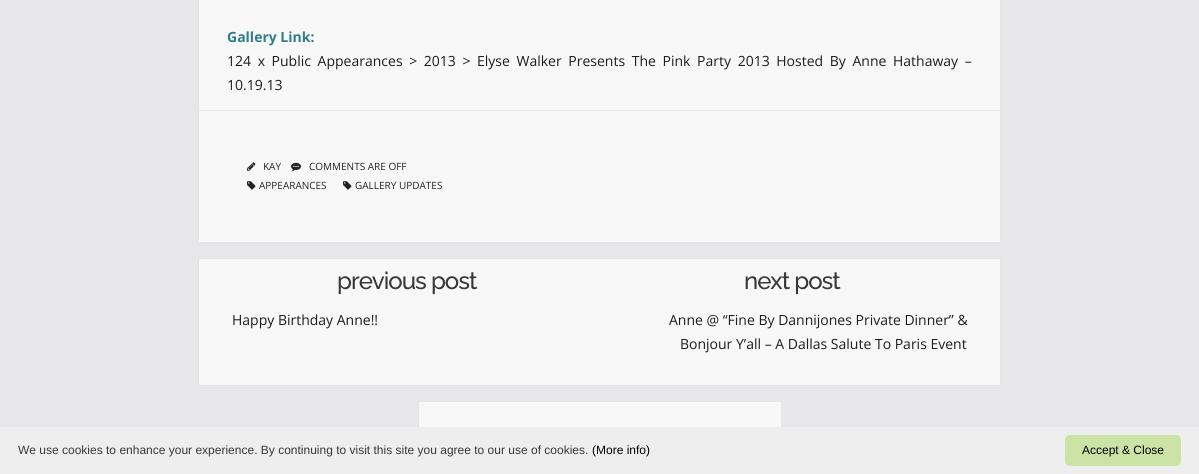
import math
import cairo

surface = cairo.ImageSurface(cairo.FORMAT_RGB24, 1199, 474)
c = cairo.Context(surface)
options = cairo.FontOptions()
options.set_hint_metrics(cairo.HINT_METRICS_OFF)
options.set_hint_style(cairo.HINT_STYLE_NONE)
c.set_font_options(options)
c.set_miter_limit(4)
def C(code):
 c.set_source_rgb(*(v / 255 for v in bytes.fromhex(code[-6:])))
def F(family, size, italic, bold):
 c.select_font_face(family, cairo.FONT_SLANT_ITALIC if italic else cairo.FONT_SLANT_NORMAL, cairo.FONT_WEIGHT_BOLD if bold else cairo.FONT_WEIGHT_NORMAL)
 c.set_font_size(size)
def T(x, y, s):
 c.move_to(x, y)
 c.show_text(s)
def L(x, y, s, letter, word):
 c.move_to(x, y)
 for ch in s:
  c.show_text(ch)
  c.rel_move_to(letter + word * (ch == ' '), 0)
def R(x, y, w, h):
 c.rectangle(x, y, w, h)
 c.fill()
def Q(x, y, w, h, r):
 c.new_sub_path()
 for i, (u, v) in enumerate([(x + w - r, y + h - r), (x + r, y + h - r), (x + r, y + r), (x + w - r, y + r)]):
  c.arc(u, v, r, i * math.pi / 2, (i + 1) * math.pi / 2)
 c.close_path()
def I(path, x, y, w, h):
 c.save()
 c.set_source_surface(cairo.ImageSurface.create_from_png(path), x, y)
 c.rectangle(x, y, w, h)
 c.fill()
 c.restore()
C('e7e7ea')
c.paint()
C('f8f8f8')
c.rectangle(198.5,-.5,802,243)
c.fill_preserve()
C('e4e4e4')
c.set_line_width(1)
c.stroke()
F('Open Sans',14,0,1)
C('2f7e89')
T(227,42,'Gallery Link:')
F('Open Sans',14,0,0)
C('1c1c1c')
L(227,66,'124 x Public Appearances > 2013 >',0,3)
L(477,66,'Elyse Walker Presents The Pink Party 2013 Hosted By Anne Hathaway –',0,3)
T(227,90,'10.19.13')
C('e7e7ea')
R(199,110,801,1)
I('1.png',247,162,9,9)
F('Open Sans',10,0,0)
C('222222')
T(263,170,'KAY')
I('2.png',291,162,10,10)
T(309,170,'COMMENTS ARE OFF')
I('3.png',247,181,9,9)
T(259,189,'APPEARANCES')
I('3.png',343,181,9,9)
T(355,189,'GALLERY UPDATES')
C('f8f8f8')
c.rectangle(198.5,258.5,802,127)
c.fill_preserve()
C('e4e4e4')
c.stroke()
F('Raleway Medium',24,0,0)
C('373737')
L(337,289,'previous post',-1,0)
F('Open Sans',14,0,0)
C('1c1c1c')
T(232,325,'Happy Birthday Anne!!')
F('Raleway Medium',24,0,0)
C('373737')
L(744,289,'next post',-1,0)
F('Open Sans',14,0,0)
C('1c1c1c')
T(669,325,'Anne @ “Fine By Dannijones Private Dinner” &')
T(680,349,'Bonjour Y’all – A Dallas Salute To Paris Event')
C('f8f8f8')
R(419,402,362,25)
c.save()
c.rectangle(418,401,363,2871)
c.clip()
c.rectangle(418.5,401.5,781,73)
C('e4e4e4')
c.stroke()
c.restore()
C('eeeeee')
R(0,427,1199,47)
F('Liberation Sans',12,0,0)
C('373737')
T(18,454,'We use cookies to enhance your experience. By continuing to visit this site you agree to our use of cookies.')
C('000000')
T(592,454,'(More info)')
C('cbe3a5')
Q(1065,435,116,31,5)
c.fill()
C('000000')
T(1082,454,'Accept & Close')
surface.write_to_png('o.png')
